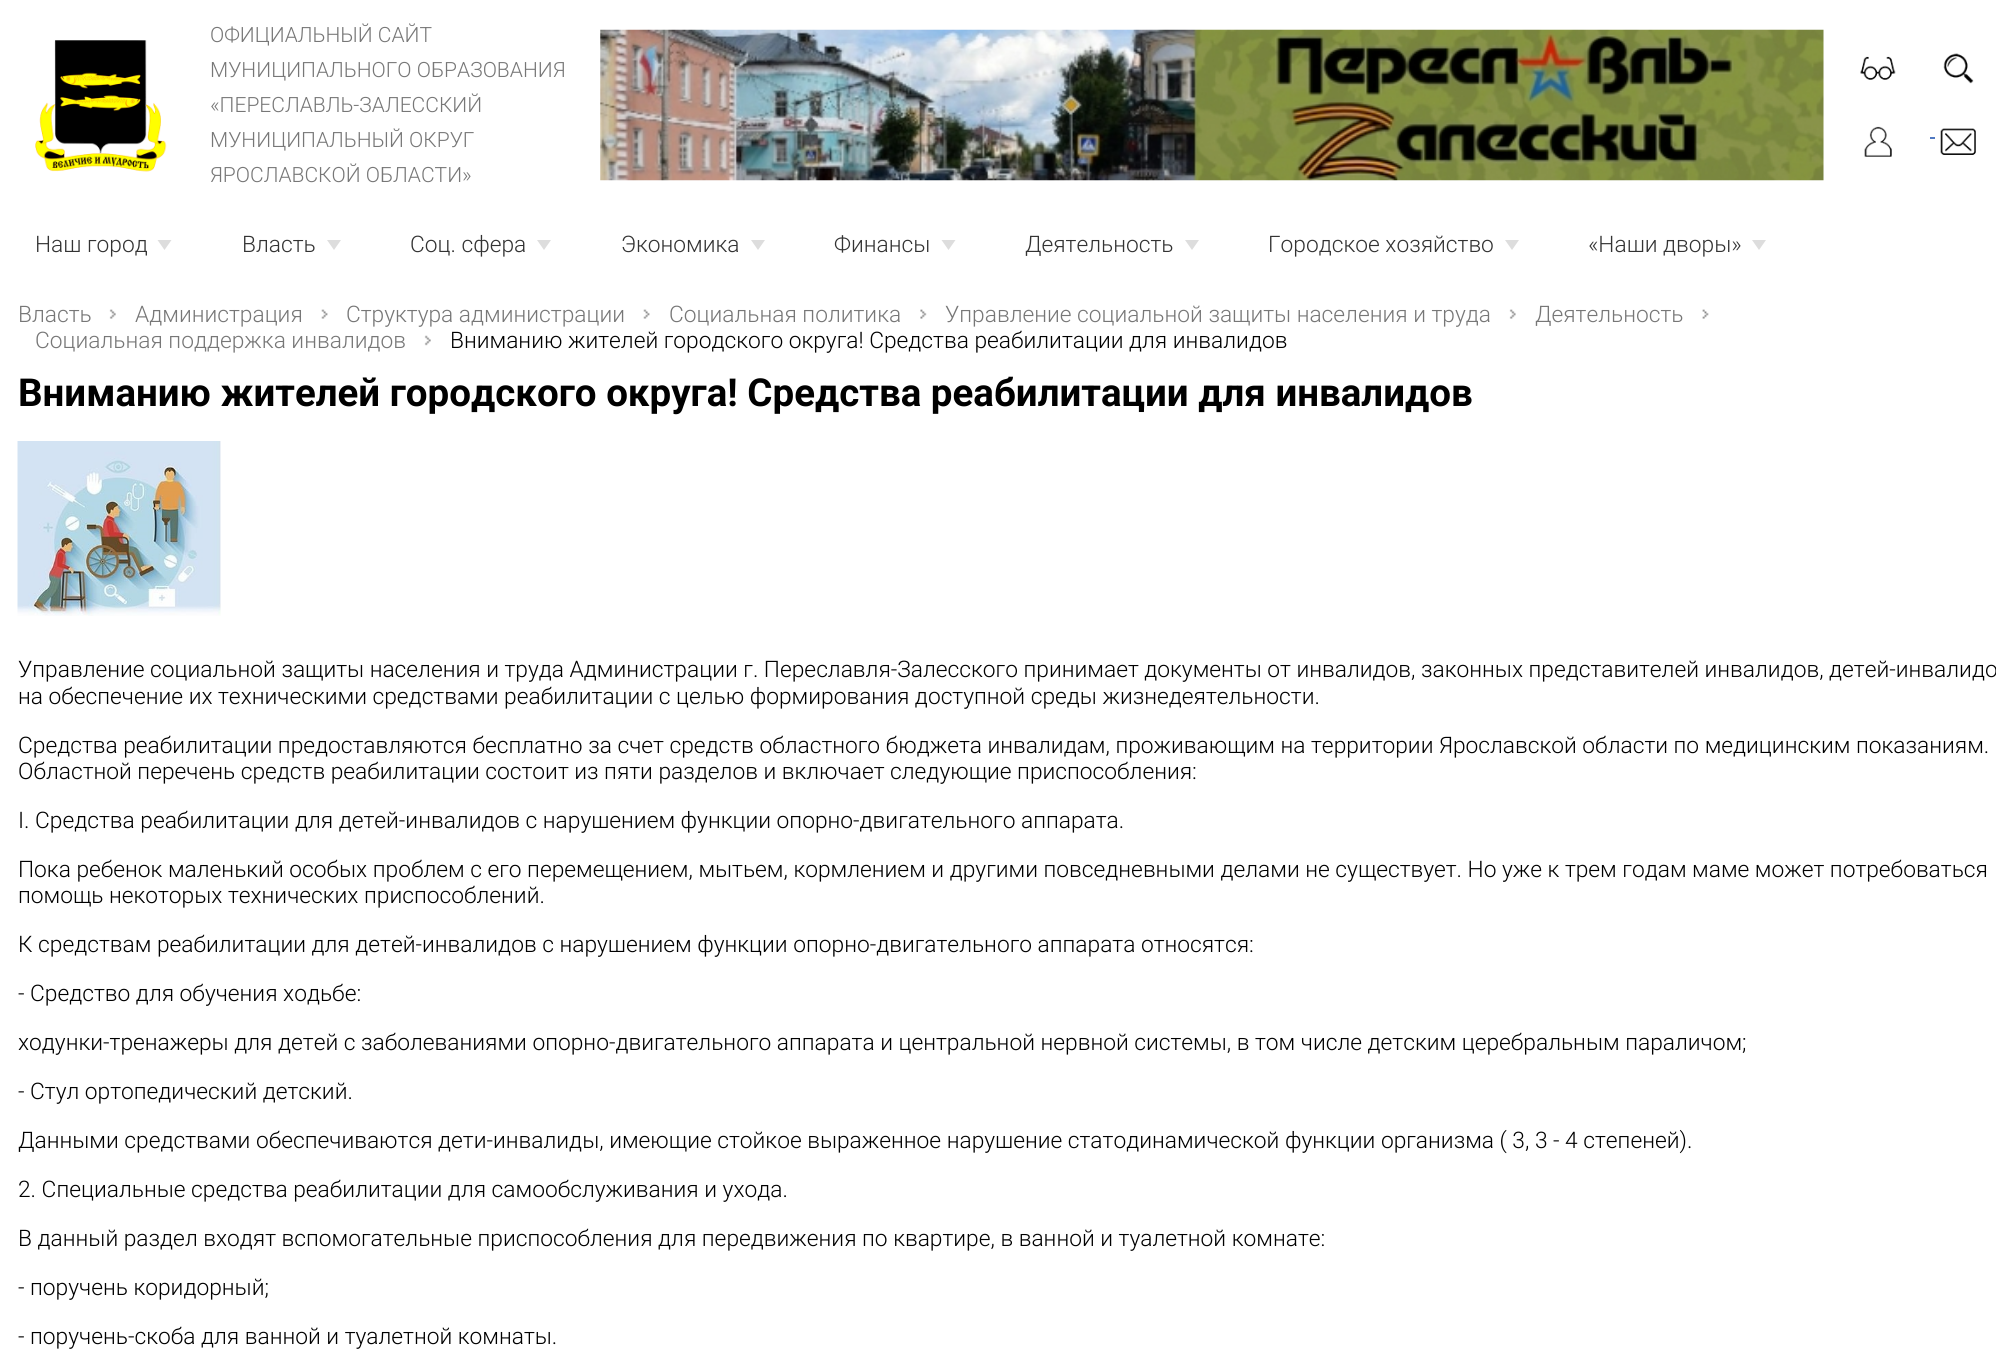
import math
import cairo

surface = cairo.ImageSurface(cairo.FORMAT_RGB24, 1996, 1365)
c = cairo.Context(surface)
options = cairo.FontOptions()
options.set_hint_metrics(cairo.HINT_METRICS_OFF)
options.set_hint_style(cairo.HINT_STYLE_NONE)
c.set_font_options(options)
c.set_miter_limit(4)
def C(code):
 c.set_source_rgb(*(v / 255 for v in bytes.fromhex(code[-6:])))
def F(family, size, italic, bold):
 c.select_font_face(family, cairo.FONT_SLANT_ITALIC if italic else cairo.FONT_SLANT_NORMAL, cairo.FONT_WEIGHT_BOLD if bold else cairo.FONT_WEIGHT_NORMAL)
 c.set_font_size(size)
def T(x, y, s):
 c.move_to(x, y)
 c.show_text(s)
def R(x, y, w, h):
 c.rectangle(x, y, w, h)
 c.fill()
def I(path, x, y, w, h):
 c.save()
 c.set_source_surface(cairo.ImageSurface.create_from_png(path), x, y)
 c.rectangle(x, y, w, h)
 c.fill()
 c.restore()
C('ffffff')
c.paint()
I('1.png',35,40,132,132)
F('Roboto Light',21,0,0)
C('777777')
T(210,42,'ОФИЦИАЛЬНЫЙ САЙТ')
T(210,77,'МУНИЦИПАЛЬНОГО ОБРАЗОВАНИЯ')
T(210,112,'«ПЕРЕСЛАВЛЬ-ЗАЛЕССКИЙ')
T(210,147,'МУНИЦИПАЛЬНЫЙ ОКРУГ')
T(210,182,'ЯРОСЛАВСКОЙ ОБЛАСТИ»')
I('2.png',600,29,1224,152)
I('3.png',1860,56,36,24)
I('4.png',1943,53,31,31)
I('5.png',1864,126,28,31)
I('6.png',1940,128,36,27)
C('5079c2')
R(1930,137,5,2)
F('Roboto Light',22.75,0,0)
C('333333')
T(35,252,'Наш город')
C('dddddd')
c.new_path()
c.move_to(157.5,240)
c.line_to(171.5,240)
c.line_to(164.5,250)
c.close_path()
c.fill()
C('333333')
T(242,252,'Власть')
C('dddddd')
c.new_path()
c.move_to(327,240)
c.line_to(341,240)
c.line_to(334,250)
c.close_path()
c.fill()
C('333333')
T(410,252,'Соц. сфера')
C('dddddd')
c.new_path()
c.move_to(537,240)
c.line_to(551,240)
c.line_to(544,250)
c.close_path()
c.fill()
C('333333')
T(621,252,'Экономика')
C('dddddd')
c.new_path()
c.move_to(751,240)
c.line_to(765,240)
c.line_to(758,250)
c.close_path()
c.fill()
C('333333')
T(834,252,'Финансы')
C('dddddd')
c.new_path()
c.move_to(941.5,240)
c.line_to(955.5,240)
c.line_to(948.5,250)
c.close_path()
c.fill()
C('333333')
T(1025,252,'Деятельность')
C('dddddd')
c.new_path()
c.move_to(1185,240)
c.line_to(1199,240)
c.line_to(1192,250)
c.close_path()
c.fill()
C('333333')
T(1268,252,'Городское хозяйство')
C('dddddd')
c.new_path()
c.move_to(1505,240)
c.line_to(1519,240)
c.line_to(1512,250)
c.close_path()
c.fill()
C('333333')
T(1588,252,'«Наши дворы»')
C('dddddd')
c.new_path()
c.move_to(1752,240)
c.line_to(1766,240)
c.line_to(1759,250)
c.close_path()
c.fill()
C('777777')
T(18,322,'Власть')
I('7.png',109,309,7,10)
I('8.png',321,309,7,10)
T(135,322,'Администрация')
T(346,322,'Структура администрации')
I('8.png',643,309,7,10)
I('9.png',920,309,7,10)
T(669,322,'Социальная политика')
I('10.png',1509,309,7,10)
T(945,322,'Управление социальной защиты населения и труда')
I('11.png',1702,309,7,10)
T(1535,322,'Деятельность')
I('12.png',424,335,7,11)
T(35,348,'Социальная поддержка инвалидов')
C('000000')
T(450,348,'Вниманию жителей городского округа! Средства реабилитации для инвалидов')
F('Roboto',38.5,0,1)
T(18,406,'Вниманию жителей городского округа! Средства реабилитации для инвалидов')
I('13.png',17,441,204,175)
F('Roboto Light',22.75,0,0)
T(18,677,'Управление социальной защиты населения и труда Администрации г. Переславля-Залесского принимает документы от инвалидов, законных представителей инвалидов, детей-инвалидо')
T(18,704,'на обеспечение их техническими средствами реабилитации с целью формирования доступной среды жизнедеятельности.')
T(18,753,'Средства реабилитации предоставляются бесплатно за счет средств областного бюджета инвалидам, проживающим на территории Ярославской области по медицинским показаниям.')
T(18,779,'Областной перечень средств реабилитации состоит из пяти разделов и включает следующие приспособления:')
T(18,828,'I. Средства реабилитации для детей-инвалидов с нарушением функции опорно-двигательного аппарата.')
T(18,877,'Пока ребенок маленький особых проблем с его перемещением, мытьем, кормлением и другими повседневными делами не существует. Но уже к трем годам маме может потребоваться')
T(18,903,'помощь некоторых технических приспособлений.')
T(18,952,'К средствам реабилитации для детей-инвалидов с нарушением функции опорно-двигательного аппарата относятся:')
T(18,1001,'- Средство для обучения ходьбе:')
T(18,1050,'ходунки-тренажеры для детей с заболеваниями опорно-двигательного аппарата и центральной нервной системы, в том числе детским церебральным параличом;')
T(18,1099,'- Стул ортопедический детский.')
T(18,1148,'Данными средствами обеспечиваются дети-инвалиды, имеющие стойкое выраженное нарушение статодинамической функции организма ( 3, 3 - 4 степеней).')
T(18,1197,'2. Специальные средства реабилитации для самообслуживания и ухода.')
T(18,1246,'В данный раздел входят вспомогательные приспособления для передвижения по квартире, в ванной и туалетной комнате:')
T(18,1295,'- поручень коридорный;')
T(18,1344,'- поручень-скоба для ванной и туалетной комнаты.')
surface.write_to_png('o.png')
